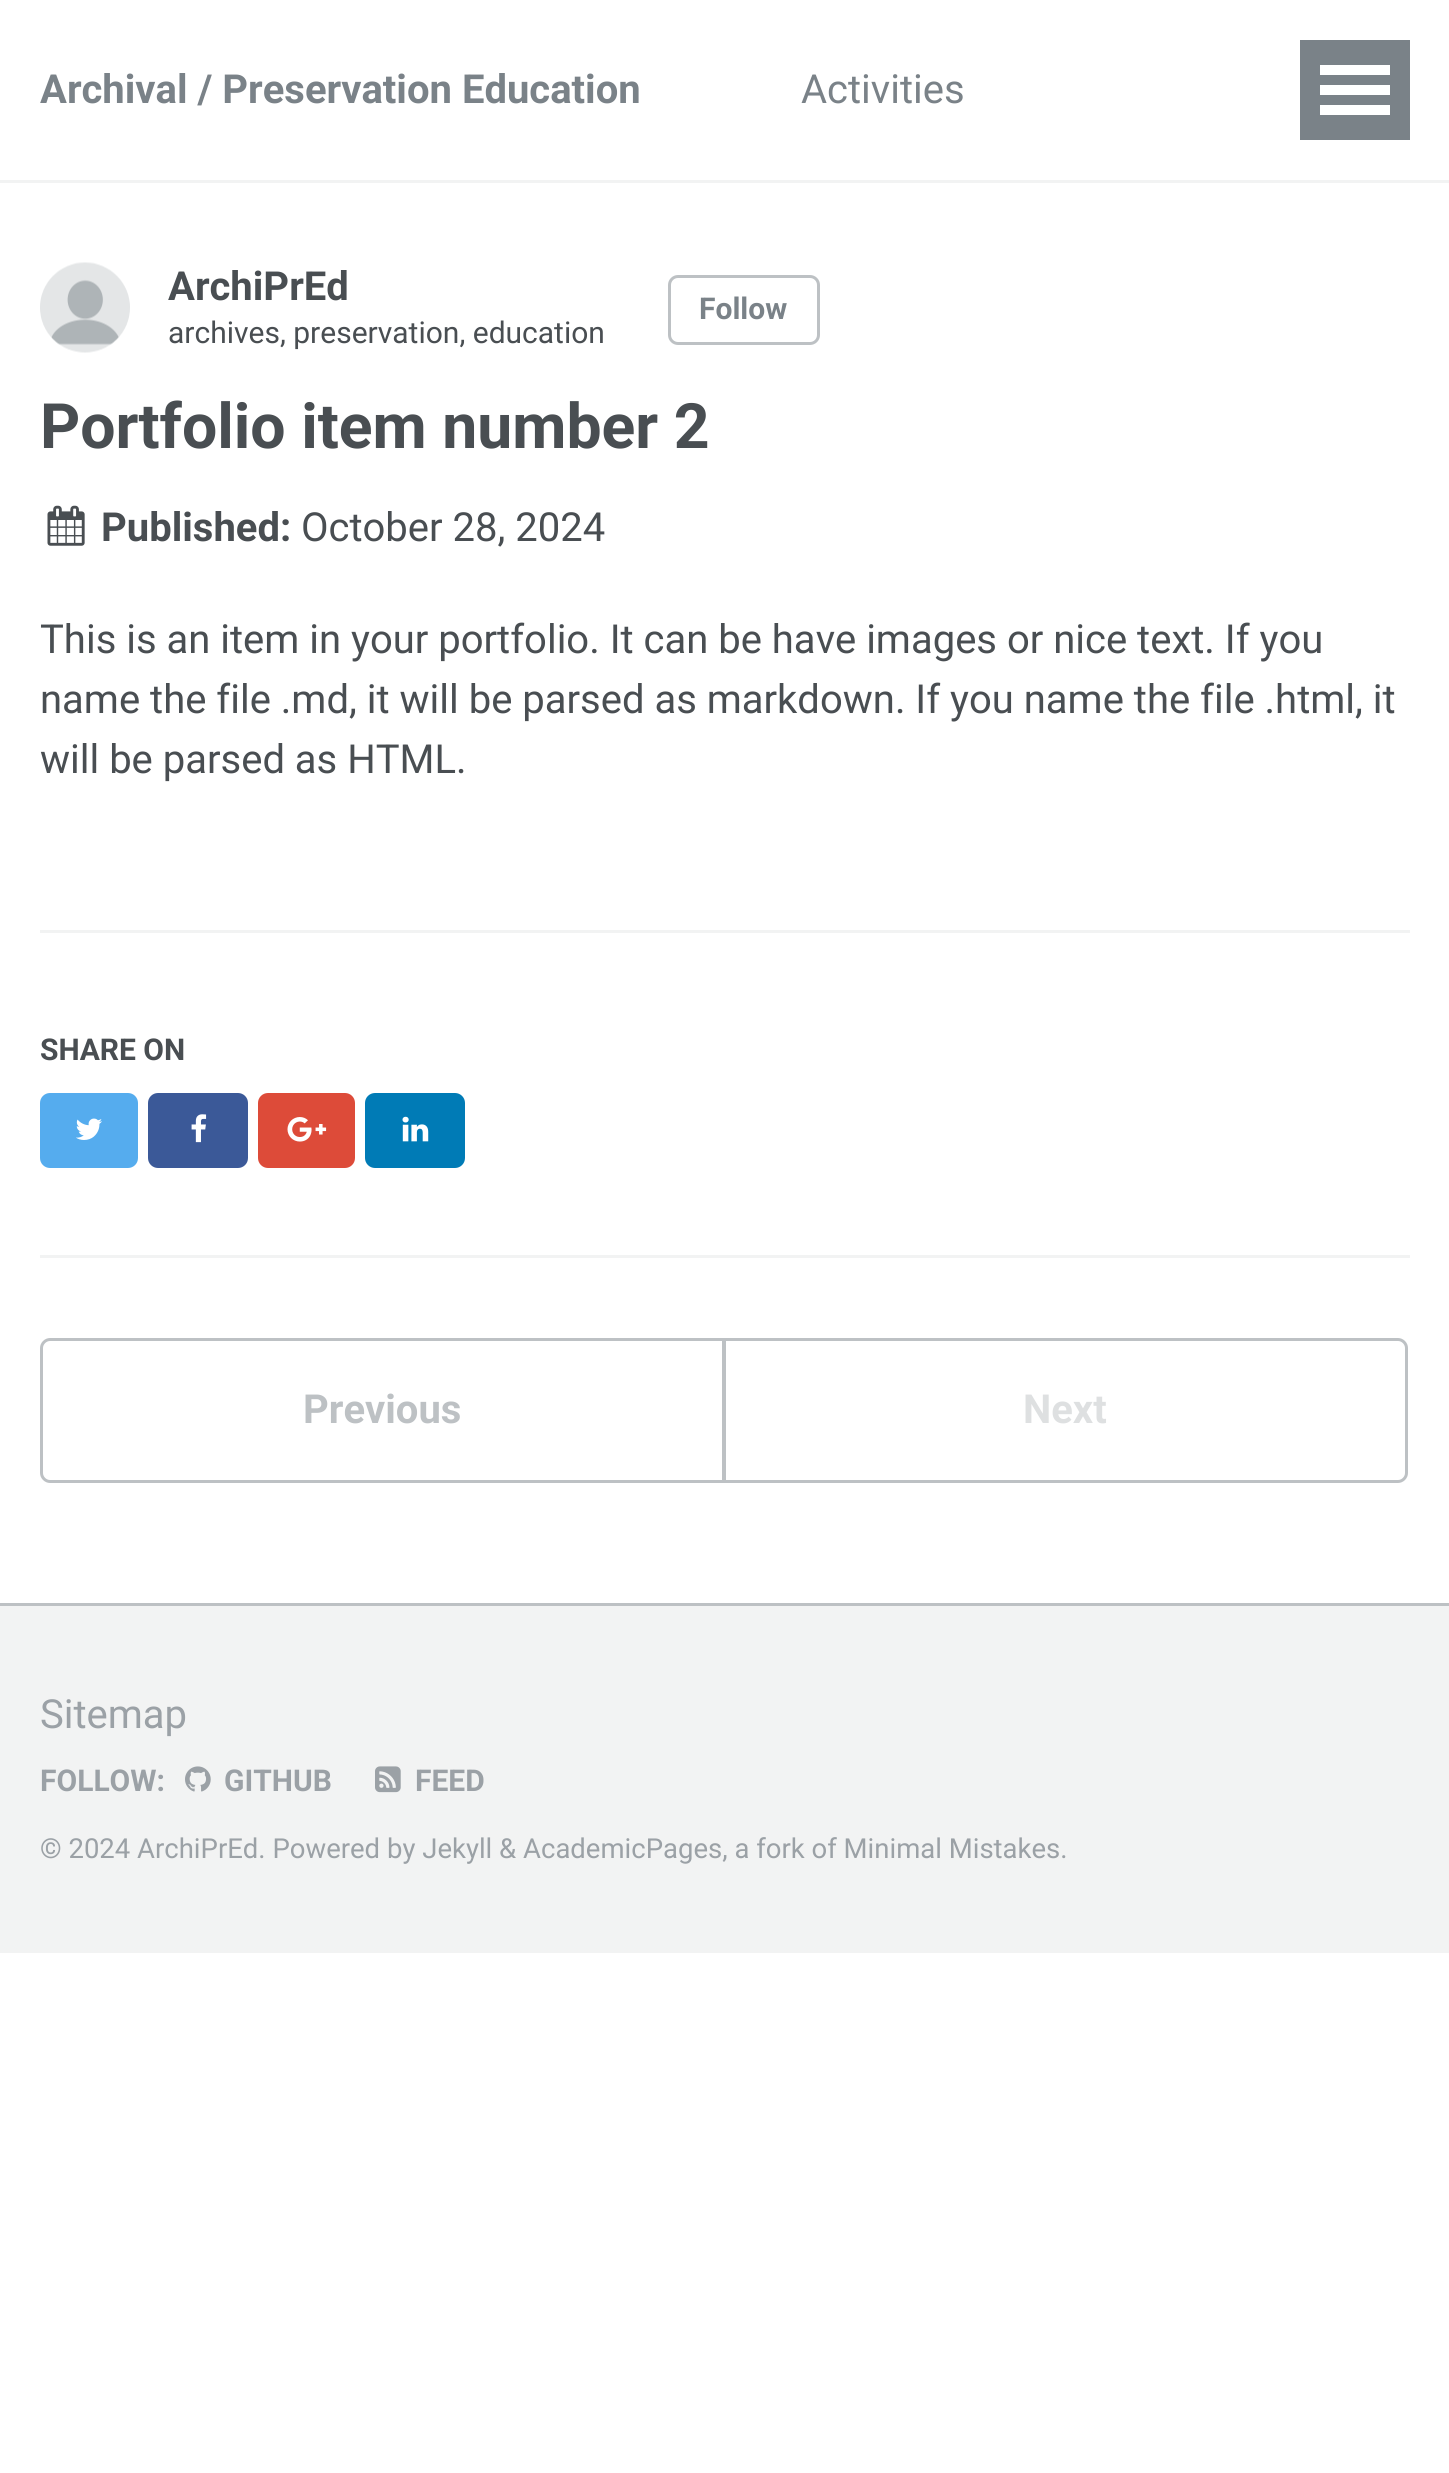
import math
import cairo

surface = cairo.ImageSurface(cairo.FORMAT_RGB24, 1449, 2473)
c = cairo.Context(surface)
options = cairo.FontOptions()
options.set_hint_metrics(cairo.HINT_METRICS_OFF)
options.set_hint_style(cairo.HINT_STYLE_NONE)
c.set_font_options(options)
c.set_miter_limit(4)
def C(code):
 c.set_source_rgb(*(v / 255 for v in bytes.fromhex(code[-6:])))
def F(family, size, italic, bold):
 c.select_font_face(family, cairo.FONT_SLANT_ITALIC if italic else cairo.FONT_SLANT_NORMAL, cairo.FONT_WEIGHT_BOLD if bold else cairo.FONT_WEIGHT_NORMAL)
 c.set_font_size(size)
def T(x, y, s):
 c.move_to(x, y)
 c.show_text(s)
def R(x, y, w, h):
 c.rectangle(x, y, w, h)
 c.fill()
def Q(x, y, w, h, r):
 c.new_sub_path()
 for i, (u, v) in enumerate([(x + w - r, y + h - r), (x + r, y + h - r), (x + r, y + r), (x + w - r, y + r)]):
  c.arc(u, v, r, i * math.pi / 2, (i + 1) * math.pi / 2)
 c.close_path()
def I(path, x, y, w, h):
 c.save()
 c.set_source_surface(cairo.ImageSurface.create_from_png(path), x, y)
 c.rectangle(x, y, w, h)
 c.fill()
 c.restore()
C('ffffff')
c.paint()
C('f2f3f3')
R(0,180,1449,3)
F('Roboto',40,0,1)
C('7a8288')
T(40,103,'Archival / Preservation Education')
F('Roboto',40,0,0)
T(801,103,'Activities')
R(1300,40,110,100)
C('ffffff')
R(1320,85,70,10)
R(1320,65,70,10)
R(1320,105,70,10)
I('1.png',40,262,90,91)
F('Roboto',40,0,1)
C('494e52')
T(168,300,'ArchiPrEd')
F('Roboto',30,0,0)
T(168,343,'archives, preservation, education')
Q(669.5,276.5,149,67,8.5)
C('bdc1c4')
c.set_line_width(3)
c.stroke()
F('Roboto',30,0,1)
C('7a8288')
T(699,319,'Follow')
F('Roboto',62.5,0,1)
C('494e52')
T(40,448,'Portfolio item number 2')
I('2.png',47,505,38,41)
F('Roboto',40,0,1)
T(101,541,'Published:')
F('Roboto',40,0,0)
T(301,541,'October 28, 2024')
T(40,653,'This is an item in your portfolio. It can be have images or nice text. If you')
T(40,713,'name the file .md, it will be parsed as markdown. If you name the file .html, it')
T(40,773,'will be parsed as HTML.')
C('f2f3f3')
R(40,930,1370,3)
F('Roboto',30,0,1)
C('494e52')
T(40,1060,'SHARE ON')
C('55acee')
Q(40,1093,98,75,10)
c.fill()
I('3.png',76,1118,26,22)
C('3b5998')
Q(148,1093,100,75,10)
c.fill()
I('4.png',191,1114,16,29)
C('dd4b39')
Q(258,1093,97,75,10)
c.fill()
I('5.png',287,1117,40,25)
C('007bb6')
Q(365,1093,100,75,10)
c.fill()
I('6.png',402,1116,27,26)
C('f2f3f3')
R(40,1255,1370,3)
c.new_path()
c.move_to(50,1339.5)
c.line_to(723.5,1339.5)
c.line_to(723.5,1481.5)
c.line_to(50,1481.5)
c.curve_to(45.5,1481.5,41.5,1477.5,41.5,1473)
c.line_to(41.5,1348)
c.curve_to(41.5,1343.5,45.5,1339.5,50,1339.5)
c.close_path()
C('bdc1c4')
c.stroke()
F('Roboto',40,0,1)
T(303,1423,'Previous')
c.new_path()
c.move_to(724.5,1339.5)
c.line_to(1398,1339.5)
c.curve_to(1402.5,1339.5,1406.5,1343.5,1406.5,1348)
c.line_to(1406.5,1473)
c.curve_to(1406.5,1477.5,1402.5,1481.5,1398,1481.5)
c.line_to(724.5,1481.5)
c.close_path()
c.stroke()
C('dee0e1')
T(1023,1423,'Next')
C('f2f3f3')
R(0,1606,1449,347)
C('bdc1c4')
R(0,1603,1449,3)
F('Roboto',40,0,0)
C('9ba1a6')
T(40,1728,'Sitemap')
F('Roboto',30,0,1)
T(40,1791,'FOLLOW:')
I('7.png',185,1766,26,26)
T(224,1791,'GITHUB')
I('8.png',375,1766,26,27)
T(415,1791,'FEED')
F('Roboto',27.5,0,0)
T(40,1858,'© 2024 ArchiPrEd. Powered by Jekyll & AcademicPages, a fork of Minimal Mistakes.')
surface.write_to_png('o.png')
